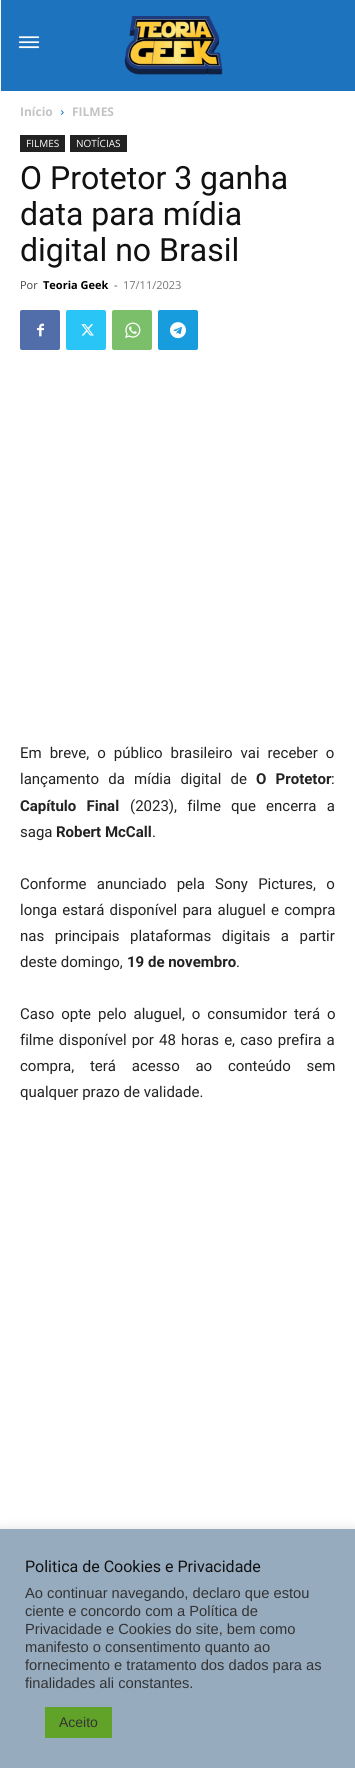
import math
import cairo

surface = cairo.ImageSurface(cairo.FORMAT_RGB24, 355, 1768)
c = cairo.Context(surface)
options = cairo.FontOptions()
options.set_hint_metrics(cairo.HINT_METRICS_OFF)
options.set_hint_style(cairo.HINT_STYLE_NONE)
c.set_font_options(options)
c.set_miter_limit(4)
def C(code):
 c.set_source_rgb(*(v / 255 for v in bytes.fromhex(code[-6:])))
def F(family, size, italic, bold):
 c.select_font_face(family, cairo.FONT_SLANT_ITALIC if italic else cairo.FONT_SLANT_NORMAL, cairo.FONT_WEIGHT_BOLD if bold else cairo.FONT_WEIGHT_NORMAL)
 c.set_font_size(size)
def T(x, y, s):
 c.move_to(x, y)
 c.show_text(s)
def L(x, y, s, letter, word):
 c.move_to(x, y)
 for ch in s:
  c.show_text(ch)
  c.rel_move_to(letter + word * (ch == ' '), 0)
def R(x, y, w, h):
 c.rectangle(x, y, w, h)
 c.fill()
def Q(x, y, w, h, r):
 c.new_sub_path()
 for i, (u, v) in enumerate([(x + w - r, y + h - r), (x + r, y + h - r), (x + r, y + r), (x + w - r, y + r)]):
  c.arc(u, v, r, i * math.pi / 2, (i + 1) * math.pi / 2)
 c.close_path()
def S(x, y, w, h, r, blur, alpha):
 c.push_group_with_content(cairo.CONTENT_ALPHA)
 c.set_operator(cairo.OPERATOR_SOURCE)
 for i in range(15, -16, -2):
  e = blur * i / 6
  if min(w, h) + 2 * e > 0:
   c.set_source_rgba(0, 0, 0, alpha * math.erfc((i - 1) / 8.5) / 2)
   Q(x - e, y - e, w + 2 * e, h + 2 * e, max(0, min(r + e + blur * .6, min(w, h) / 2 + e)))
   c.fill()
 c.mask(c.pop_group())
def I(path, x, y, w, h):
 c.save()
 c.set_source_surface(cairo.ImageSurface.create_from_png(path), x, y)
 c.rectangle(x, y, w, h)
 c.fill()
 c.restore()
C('ffffff')
c.paint()
C('1e73be')
R(1,0,354,91)
I('1.png',18,36,22,13)
I('2.png',124,16,99,59)
F('Open Sans',12,0,1)
C('c3c3c3')
T(20,116,'Início')
I('3.png',61,110,3,5)
T(72,116,'FILMES')
C('222222')
R(20,135,45,17)
F('Open Sans',10,0,0)
C('ffffff')
T(26,147,'FILMES')
C('222222')
R(70,135,57,17)
C('ffffff')
T(76,147,'NOTÍCIAS')
F('Roboto',32,0,0)
C('111111')
T(20,189,'O Protetor 3 ganha')
T(20,225,'data para mídia')
T(20,261,'digital no Brasil')
F('Open Sans',11,0,0)
C('444444')
T(20,289,'Por')
F('Open Sans',11,0,1)
C('000000')
T(43,289,'Teoria Geek')
F('Open Sans',11,0,0)
C('444444')
T(114,289,'-')
C('767676')
T(123,289,'17/11/2023')
C('516eab')
Q(20,310,40,40,2)
c.fill()
I('4.png',37,323,7,14)
C('29c5f6')
Q(66,310,40,40,2)
c.fill()
I('5.png',81,324,13,12)
C('7bbf6a')
Q(112,310,40,40,2)
c.fill()
I('6.png',125,322,16,16)
C('179cde')
Q(158,310,40,40,2)
c.fill()
I('7.png',170,322,16,17)
F('Roboto',15,0,0)
C('222222')
L(20,758,'Em breve, o público brasileiro vai receber o',0,4.25)
L(20,784,'lançamento da mídia digital de',0,5.5)
F('Roboto',15,0,1)
L(256,784,'O Protetor',0,5.5)
F('Roboto',15,0,0)
T(331,784,':')
F('Roboto',15,0,1)
L(20,811,'Capítulo Final',0,6.5)
F('Roboto',15,0,0)
L(130,811,'(2023), filme que encerra a',0,6.5)
T(20,837,'saga')
F('Roboto',15,0,1)
T(56,837,'Robert McCall')
F('Roboto',15,0,0)
T(152,837,'.')
L(20,889,'Conforme anunciado pela Sony Pictures, o',0,6.5)
L(20,915,'longa estará disponível para aluguel e compra',0,1.5)
L(20,941,'nas principais plataformas digitais a partir',0,6.75)
T(20,967,'deste domingo,')
F('Roboto',15,0,1)
T(127,967,'19 de novembro')
F('Roboto',15,0,0)
T(236,967,'.')
L(20,1019,'Caso opte pelo aluguel, o consumidor terá o',0,3.25)
L(20,1045,'filme disponível por 48 horas e, caso prefira a',0,1.5)
L(20,1071,'compra, terá acesso ao conteúdo sem',0,12)
T(20,1097,'qualquer prazo de validade.')
C('acabab')
S(0,1528,355,239,0,5,.3)
C('97abbf')
R(0,1529,355,239)
F('Roboto',16,0,0)
C('111111')
T(25,1572,'Politica de Cookies e Privacidade')
F('Liberation Sans',14.7,0,0)
C('333333')
T(25,1598,'Ao continuar navegando, declaro que estou')
T(25,1616,'ciente e concordo com a Política de')
T(25,1634,'Privacidade e Cookies do site, bem como')
T(25,1652,'manifesto o consentimento quanto ao')
T(25,1670,'fornecimento e tratamento dos dados para as')
T(25,1688,'finalidades ali constantes.')
C('61a229')
R(45,1707,67,31)
F('Liberation Sans',14,0,0)
C('333333')
T(59,1727,'Aceito')
surface.write_to_png('o.png')
